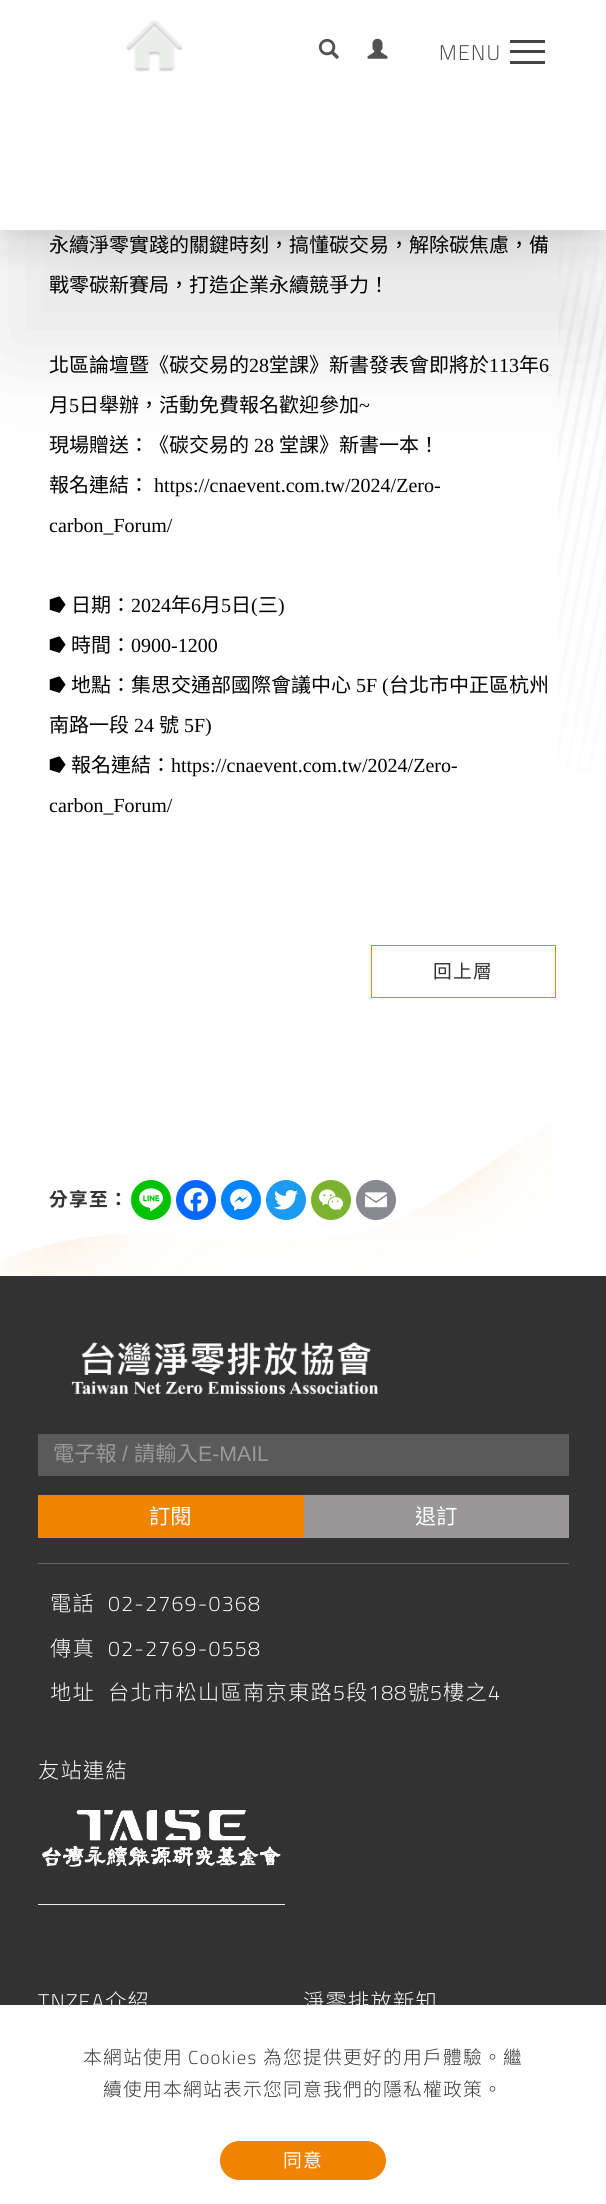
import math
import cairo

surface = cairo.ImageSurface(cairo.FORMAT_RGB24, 606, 2204)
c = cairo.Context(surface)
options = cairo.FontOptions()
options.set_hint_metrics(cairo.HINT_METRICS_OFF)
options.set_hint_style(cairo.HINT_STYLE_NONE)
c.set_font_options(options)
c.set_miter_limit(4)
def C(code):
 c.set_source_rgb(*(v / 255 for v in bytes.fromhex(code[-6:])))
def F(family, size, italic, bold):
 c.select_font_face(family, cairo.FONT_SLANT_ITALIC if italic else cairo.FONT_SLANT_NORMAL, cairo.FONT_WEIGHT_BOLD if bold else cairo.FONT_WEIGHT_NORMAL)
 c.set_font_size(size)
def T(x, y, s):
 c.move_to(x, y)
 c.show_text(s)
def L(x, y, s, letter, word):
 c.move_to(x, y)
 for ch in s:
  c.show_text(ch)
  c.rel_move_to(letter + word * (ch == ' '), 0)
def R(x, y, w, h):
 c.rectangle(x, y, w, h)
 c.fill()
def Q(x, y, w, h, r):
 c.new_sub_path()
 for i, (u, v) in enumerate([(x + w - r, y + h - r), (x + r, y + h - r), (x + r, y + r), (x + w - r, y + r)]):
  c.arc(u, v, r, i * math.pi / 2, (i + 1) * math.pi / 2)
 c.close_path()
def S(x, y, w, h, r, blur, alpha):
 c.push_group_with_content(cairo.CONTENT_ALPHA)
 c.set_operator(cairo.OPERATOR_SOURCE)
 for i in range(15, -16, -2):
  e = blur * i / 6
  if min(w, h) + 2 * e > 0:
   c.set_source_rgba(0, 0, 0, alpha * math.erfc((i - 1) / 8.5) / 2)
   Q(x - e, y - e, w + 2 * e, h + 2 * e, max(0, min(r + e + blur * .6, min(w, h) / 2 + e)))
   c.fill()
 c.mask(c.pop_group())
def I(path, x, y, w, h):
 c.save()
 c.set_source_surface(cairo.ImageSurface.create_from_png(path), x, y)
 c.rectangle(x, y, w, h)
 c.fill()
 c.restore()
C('ffffff')
c.paint()
I('4.png',558,246,48,525)
C('000000')
S(0,125,606,230,0,50,.09)
S(0,28,606,230,0,11,.06)
S(0,9,606,230,0,3.5,.04)
C('ffffff')
R(0,6,606,224)
I('1.png',125,20,58,52)
I('2.png',318,38,21,21)
I('3.png',367,38,21,21)
C('434343')
R(510,40,35,3)
F('Cairo Light',21.25,0,0)
L(439,60,'MENU',1.25,0)
R(510,50,35,3)
R(510,61,35,3)
F('Noto Sans CJK TC',20,0,0)
C('000000')
T(49,252,'永續淨零實踐的關鍵時刻，搞懂碳交易，解除碳焦慮，備')
T(49,292,'戰零碳新賽局，打造企業永續競爭力！')
T(49,372,'北區論壇暨《碳交易的')
F('Liberation Serif',20,0,0)
T(249,372,'28')
F('Noto Sans CJK TC',20,0,0)
T(269,372,'堂課》新書發表會即將於')
F('Liberation Serif',20,0,0)
T(489,372,'113')
F('Noto Sans CJK TC',20,0,0)
T(519,372,'年')
F('Liberation Serif',20,0,0)
T(539,372,'6')
F('Noto Sans CJK TC',20,0,0)
T(49,412,'月')
F('Liberation Serif',20,0,0)
T(69,412,'5')
F('Noto Sans CJK TC',20,0,0)
T(79,412,'日舉辦，活動免費報名歡迎參加')
F('Liberation Serif',20,0,0)
T(359,412,'~')
F('Noto Sans CJK TC',20,0,0)
T(49,452,'現場贈送：《碳交易的')
F('Liberation Serif',20,0,0)
T(254,452,'28')
F('Noto Sans CJK TC',20,0,0)
T(279,452,'堂課》新書一本！')
T(49,492,'報名連結：')
F('Liberation Serif',20,0,0)
T(154,492,'https://cnaevent.com.tw/2024/Zero-')
T(49,532,'carbon_Forum/')
F('DejaVu Sans',20,0,0)
T(49,612,'⭓')
F('Noto Sans CJK TC',20,0,0)
T(71,612,'日期：')
F('Liberation Serif',20,0,0)
T(131,612,'2024')
F('Noto Sans CJK TC',20,0,0)
T(171,612,'年')
F('Liberation Serif',20,0,0)
T(191,612,'6')
F('Noto Sans CJK TC',20,0,0)
T(201,612,'月')
F('Liberation Serif',20,0,0)
T(221,612,'5')
F('Noto Sans CJK TC',20,0,0)
T(231,612,'日')
F('Liberation Serif',20,0,0)
T(251,612,'(')
F('Noto Sans CJK TC',20,0,0)
T(258,612,'三')
F('Liberation Serif',20,0,0)
T(278,612,')')
F('DejaVu Sans',20,0,0)
T(49,652,'⭓')
F('Noto Sans CJK TC',20,0,0)
T(71,652,'時間：')
F('Liberation Serif',20,0,0)
T(131,652,'0900-1200')
F('DejaVu Sans',20,0,0)
T(49,692,'⭓')
F('Noto Sans CJK TC',20,0,0)
T(71,692,'地點：集思交通部國際會議中心')
F('Liberation Serif',20,0,0)
T(356,692,'5F (')
F('Noto Sans CJK TC',20,0,0)
T(389,692,'台北市中正區杭州')
T(49,732,'南路一段')
F('Liberation Serif',20,0,0)
T(134,732,'24')
F('Noto Sans CJK TC',20,0,0)
T(159,732,'號')
F('Liberation Serif',20,0,0)
T(184,732,'5F)')
F('DejaVu Sans',20,0,0)
T(49,772,'⭓')
F('Noto Sans CJK TC',20,0,0)
T(71,772,'報名連結：')
F('Liberation Serif',20,0,0)
T(171,772,'https://cnaevent.com.tw/2024/Zero-')
T(49,812,'carbon_Forum/')
c.rectangle(371.5,945.5,184,52)
C('f08300')
c.set_line_width(1)
c.stroke()
F('Noto Sans TC',18.75,0,0)
C('333333')
L(433,978,'回上層',1.25,0)
C('323232')
R(0,1276,606,729)
I('5.png',1,1125,552,152)
F('Noto Sans TC',18.75,0,1)
C('333333')
L(49,1206,'分享至：',1.25,0)
C('00c300')
c.new_path()
c.arc(151,1200,20,0,2 * math.pi)
c.fill()
I('6.png',139,1188,24,24)
C('0866ff')
c.arc(196,1200,20,0,2 * math.pi)
c.fill()
I('7.png',184,1187,24,25)
C('0084ff')
c.arc(241,1200,20,0,2 * math.pi)
c.fill()
I('8.png',230,1188,22,23)
C('1d9bf0')
c.arc(286,1200,20,0,2 * math.pi)
c.fill()
I('9.png',274,1190,24,20)
C('7bb32e')
c.arc(331,1200,20,0,2 * math.pi)
c.fill()
I('10.png',319,1189,24,21)
C('888990')
c.arc(376,1200,20,0,2 * math.pi)
c.fill()
I('11.png',365,1192,22,16)
C('666666')
R(38,1563,531,1)
I('12.png',71,1342,308,53)
C('5a5a5a')
R(38,1434,531,42)
F('Noto Sans CJK TC',21.25,0,0)
C('999999')
T(53,1461,'電子報')
F('Liberation Sans',21.25,0,0)
T(122,1461,'/')
F('Noto Sans CJK TC',21.25,0,0)
T(134,1461,'請輸入')
F('Liberation Sans',21.25,0,0)
T(198,1461,'E-MAIL')
C('f08300')
R(38,1495,266,43)
F('Noto Sans TC',21.25,0,0)
C('ffffff')
T(149,1524,'訂閱')
C('999797')
R(304,1495,265,43)
C('ffffff')
T(415,1524,'退訂')
F('Noto Sans TC Light',21.25,0,0)
L(50,1611,'電話',1.25,0)
F('Cairo Light',21.25,0,0)
L(108,1611,'02-2769-0368',1.25,0)
F('Noto Sans TC Light',21.25,0,0)
L(50,1656,'傳真',1.25,0)
F('Cairo Light',21.25,0,0)
L(108,1656,'02-2769-0558',1.25,0)
F('Noto Sans TC Light',21.25,0,0)
L(50,1700,'地址',1.25,0)
L(108,1700,'台北市松山區南京東路',1.25,0)
F('Cairo Light',21.25,0,0)
L(333,1700,'5',1.25,0)
F('Noto Sans TC Light',21.25,0,0)
L(346,1700,'段',1.25,0)
F('Cairo Light',21.25,0,0)
L(368,1700,'188',1.25,0)
F('Noto Sans TC Light',21.25,0,0)
L(408,1700,'號',1.25,0)
F('Cairo Light',21.25,0,0)
L(430,1700,'5',1.25,0)
F('Noto Sans TC Light',21.25,0,0)
L(443,1700,'樓之',1.25,0)
F('Cairo Light',21.25,0,0)
L(488,1700,'4',1.25,0)
F('Noto Sans TC Light',21.25,0,0)
L(38,1778,'友站連結',1.25,0)
I('13.png',42,1810,239,57)
C('eeeeee')
R(38,1904,247,1)
F('Cairo Light',21.25,0,0)
C('ffffff')
L(38,2009,'TNZEA',1.25,0)
F('Noto Sans TC Light',21.25,0,0)
L(105,2009,'介紹',1.25,0)
L(303,2009,'淨零排放新知',1.25,0)
C('333366')
S(1,2005,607,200,0,1,.2)
C('ffffff')
R(0,2005,606,199)
F('Noto Sans TC Light',18.75,0,0)
C('333333')
L(83,2064,'本網站使用',1.25,0)
F('Cairo Light',18.75,0,0)
L(188,2064,'Cookies',1.25,0)
F('Noto Sans TC Light',18.75,0,0)
L(263,2064,'為您提供更好的用戶體驗。繼',1.25,0)
L(103,2096,'續使用本網站表示您同意我們的隱私權政策。',1.25,0)
C('f08300')
Q(220,2141,166,39,19.5)
c.fill()
F('Noto Sans TC',18.75,0,0)
C('ffffff')
L(283,2167,'同意',1.25,0)
surface.write_to_png('o.png')
